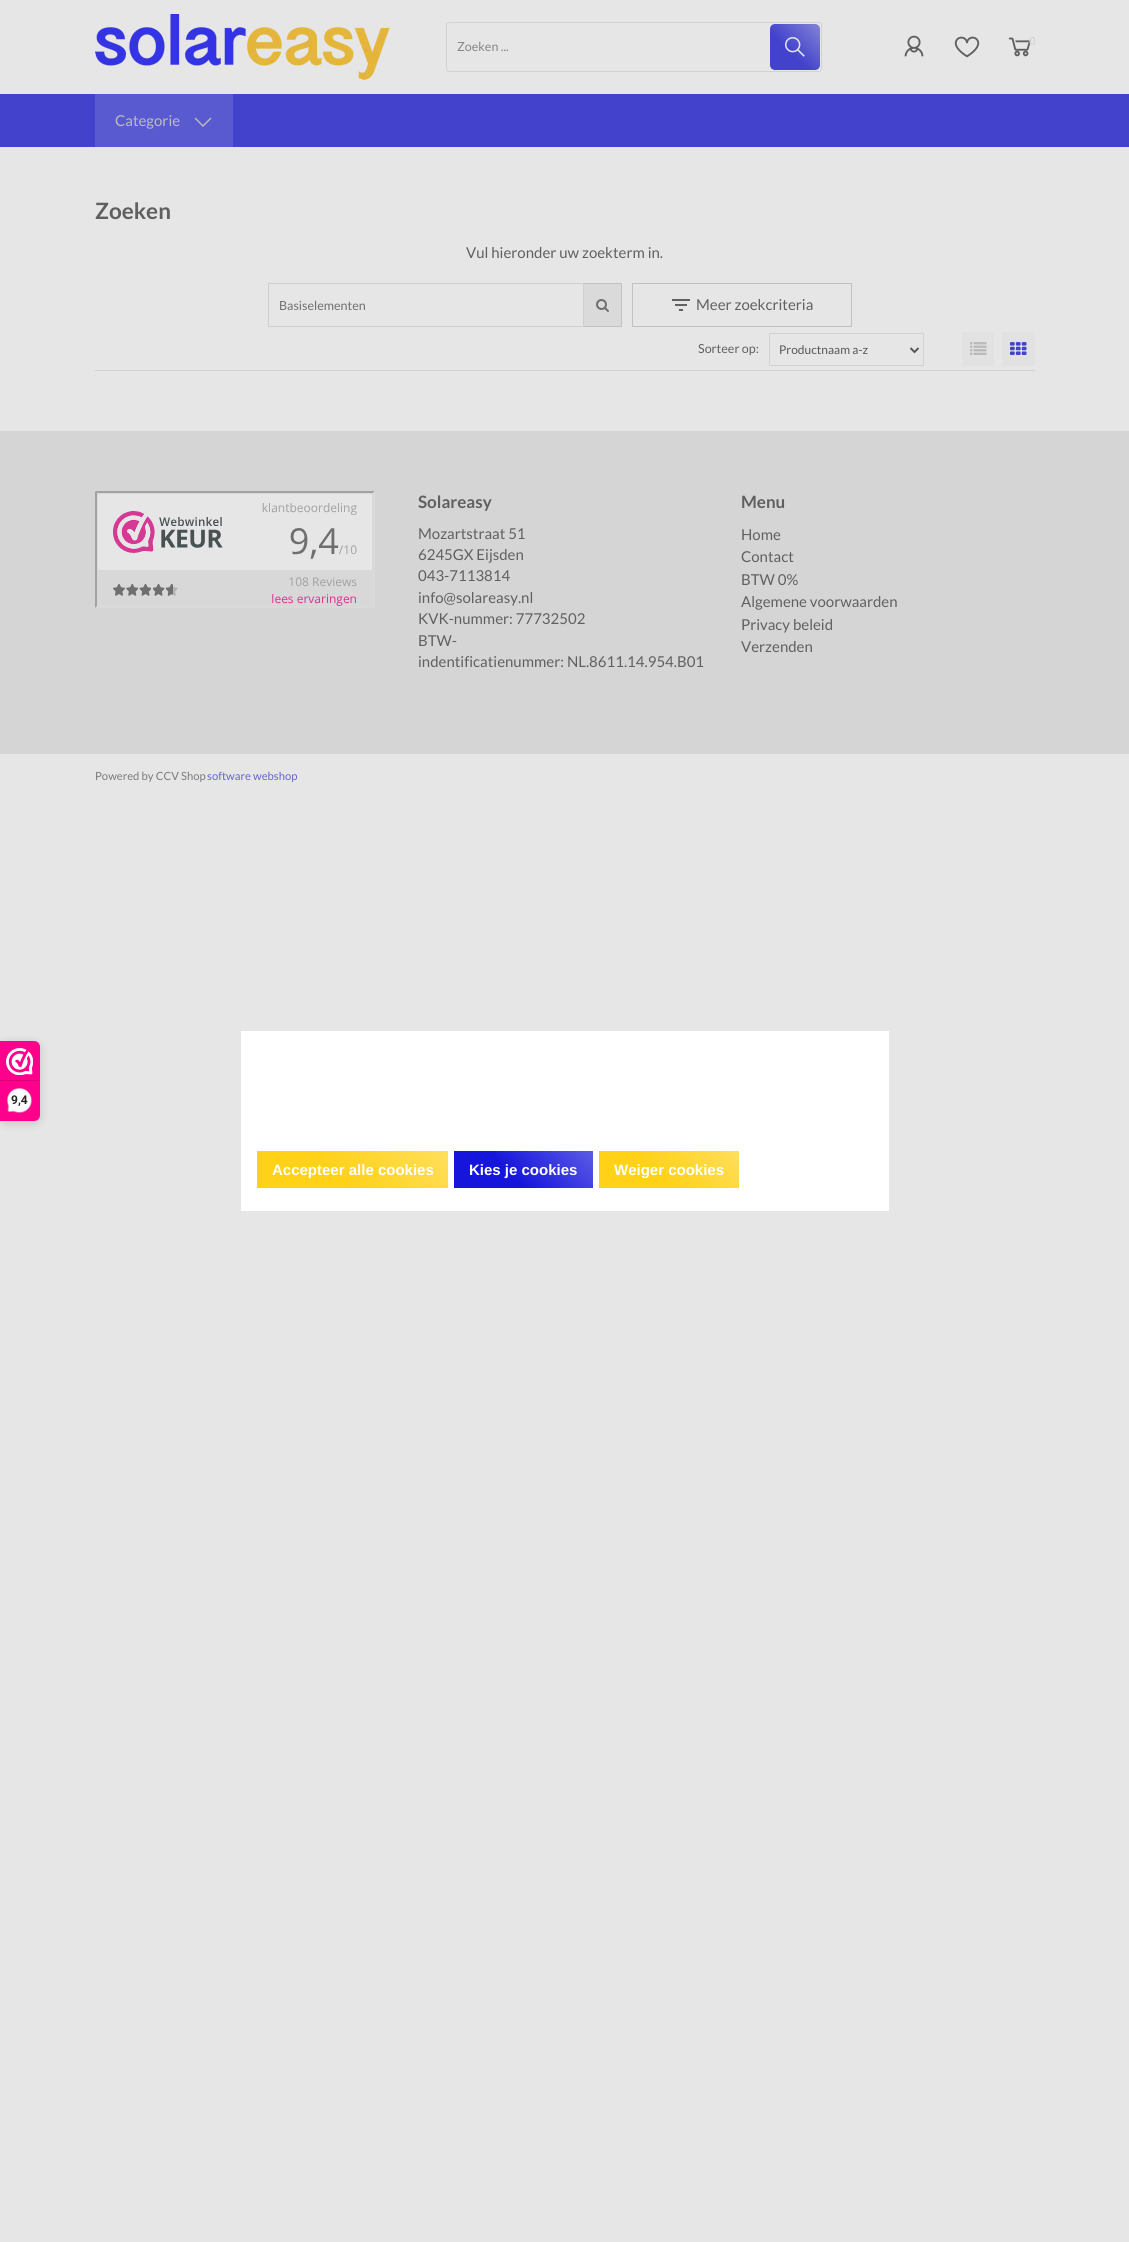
import math
import cairo

surface = cairo.ImageSurface(cairo.FORMAT_RGB24, 1129, 2242)
c = cairo.Context(surface)
options = cairo.FontOptions()
options.set_hint_metrics(cairo.HINT_METRICS_OFF)
options.set_hint_style(cairo.HINT_STYLE_NONE)
c.set_font_options(options)
c.set_miter_limit(4)
def C(code):
 c.set_source_rgb(*(v / 255 for v in bytes.fromhex(code[-6:])))
def F(family, size, italic, bold):
 c.select_font_face(family, cairo.FONT_SLANT_ITALIC if italic else cairo.FONT_SLANT_NORMAL, cairo.FONT_WEIGHT_BOLD if bold else cairo.FONT_WEIGHT_NORMAL)
 c.set_font_size(size)
def T(x, y, s):
 c.move_to(x, y)
 c.show_text(s)
def R(x, y, w, h):
 c.rectangle(x, y, w, h)
 c.fill()
def Q(x, y, w, h, r):
 c.new_sub_path()
 for i, (u, v) in enumerate([(x + w - r, y + h - r), (x + r, y + h - r), (x + r, y + r), (x + w - r, y + r)]):
  c.arc(u, v, r, i * math.pi / 2, (i + 1) * math.pi / 2)
 c.close_path()
def S(x, y, w, h, r, blur, alpha):
 c.push_group_with_content(cairo.CONTENT_ALPHA)
 c.set_operator(cairo.OPERATOR_SOURCE)
 for i in range(15, -16, -2):
  e = blur * i / 6
  if min(w, h) + 2 * e > 0:
   c.set_source_rgba(0, 0, 0, alpha * math.erfc((i - 1) / 8.5) / 2)
   Q(x - e, y - e, w + 2 * e, h + 2 * e, max(0, min(r + e + blur * .6, min(w, h) / 2 + e)))
   c.fill()
 c.mask(c.pop_group())
def I(path, x, y, w, h):
 c.save()
 c.set_source_surface(cairo.ImageSurface.create_from_png(path), x, y)
 c.rectangle(x, y, w, h)
 c.fill()
 c.restore()
C('e6e6e6')
c.paint()
I('1.png',95,14,295,66)
Q(446.5,22.5,375,49,2.5)
C('d2d2d2')
c.set_line_width(1)
c.stroke()
F('Lato',12.5,0,0)
C('858585')
T(457,51,'Zoeken ...')
C('4242cc')
Q(770,24,50,46,5)
c.fill()
gradient = cairo.LinearGradient(819,23,771,71)
gradient.add_color_stop_rgba(0,0.902,0.902,0.902,.4)
gradient.add_color_stop_rgba(.6,0.902,0.902,0.902,0)
c.set_source(gradient)
R(770,24,50,46)
I('2.png',785,37,20,20)
I('3.png',904,35,20,22)
I('4.png',954,36,26,22)
I('5.png',1008,37,23,20)
F('Lato',11.25,0,1)
C('d5d5d5')
T(1029,45,'0')
C('4242cc')
R(0,94,1129,53)
C('5a5ad0')
R(95,94,138,53)
F('Lato',15,0,0)
C('bcbcbc')
T(115,126,'Categorie')
c.new_path()
c.move_to(195.5,117.5)
c.line_to(194.5,118.5)
c.line_to(203,127)
c.line_to(211.5,118.5)
c.line_to(210.5,117.5)
c.line_to(203,125)
c.close_path()
c.fill()
F('Lato',22.5,0,1)
C('606060')
T(95,219,'Zoeken')
F('Lato',15,0,0)
T(466,258,'Vul hieronder uw zoekterm in.')
c.rectangle(268.5,283.5,315,43)
C('cfcfcf')
c.stroke()
F('Lato',12.5,0,0)
C('6f6f6f')
T(279,310,'Basiselementen')
C('dadada')
R(584,284,37,42)
C('c2c2c2')
R(584,283,38,1)
R(621,283,1,44)
R(584,326,38,1)
I('6.png',596,299,13,13)
c.rectangle(632.5,283.5,219,43)
c.stroke()
I('7.png',672,299,18,12)
F('Lato',15,0,0)
C('606060')
T(696,310,'Meer zoekcriteria')
C('d2d2d2')
R(95,370,940,1)
F('Lato',12.5,0,0)
C('606060')
T(698,353,'Sorteer op:')
c.rectangle(769.5,333.5,154,32)
C('d2d2d2')
c.stroke()
c.new_path()
c.move_to(910.5,348)
c.line_to(914.5,352)
c.line_to(918.5,348)
C('575757')
c.set_line_width(2)
c.stroke()
F('Lato',12,0,0)
T(779,354,'Productnaam a-z')
C('e2e2e2')
R(962,332,32,34)
I('8.png',970,342,17,13)
R(1002,332,33,34)
I('9.png',1010,342,17,13)
C('d5d5d5')
R(0,431,1129,323)
C('a2a2a2')
c.new_path()
c.move_to(95,491)
c.line_to(375,491)
c.line_to(373,493)
c.line_to(97,493)
c.close_path()
c.fill()
C('dadada')
c.new_path()
c.move_to(375,491)
c.line_to(375,608)
c.line_to(373,606)
c.line_to(373,493)
c.close_path()
c.fill()
c.new_path()
c.move_to(375,608)
c.line_to(95,608)
c.line_to(97,606)
c.line_to(373,606)
c.close_path()
c.fill()
C('a2a2a2')
c.new_path()
c.move_to(95,608)
c.line_to(95,491)
c.line_to(97,493)
c.line_to(97,606)
c.close_path()
c.fill()
I('10.png',97,493,276,113)
F('Lato',17,0,1)
C('606060')
T(418,508,'Solareasy')
F('Lato',15,0,0)
T(418,539,'Mozartstraat 51')
T(418,560,'6245GX Eijsden')
T(418,581,'043-7113814')
T(418,603,'info@solareasy.nl')
T(418,624,'KVK-nummer: 77732502')
T(418,646,'BTW-')
T(418,667,'indentificatienummer: NL.8611.14.954.B01')
F('Lato',17,0,1)
T(741,508,'Menu')
F('Lato',15,0,0)
T(741,540,'Home')
T(741,562,'Contact')
T(741,585,'BTW 0%')
T(741,607,'Algemene voorwaarden')
T(741,630,'Privacy beleid')
T(741,652,'Verzenden')
F('Lato',11.25,0,0)
C('7a7a7a')
T(95,780,'Powered by CCV Shop')
C('6363d1')
T(207,780,'software webshop')
C('000000')
S(0,1043,40,80,6,5,.15)
C('fe008c')
c.new_path()
c.move_to(0,1041)
c.line_to(34,1041)
c.curve_to(37.5,1041,40,1043.5,40,1047)
c.line_to(40,1115)
c.curve_to(40,1118.5,37.5,1121,34,1121)
c.line_to(0,1121)
c.close_path()
c.fill()
I('11.png',6,1048,27,27)
C('d80077')
R(0,1080,39,1)
I('12.png',6,1087,26,26)
F('Roboto',12,0,1)
C('272626')
T(11,1104,'9,4')
C('ffffff')
R(241,1031,648,180)
C('ffd117')
R(257,1151,191,37)
gradient = cairo.LinearGradient(410,1113,296,1227)
gradient.add_color_stop_rgba(0,1,1,1,.3)
gradient.add_color_stop_rgba(.6,1,1,1,0)
c.set_source(gradient)
R(322,1151,126,37)
F('Liberation Sans',15,0,1)
C('ffffff')
T(272,1175,'Accepteer alle cookies')
C('1515db')
R(454,1151,139,37)
gradient = cairo.LinearGradient(568,1126,480,1214)
gradient.add_color_stop_rgba(0,1,1,1,.3)
gradient.add_color_stop_rgba(.6,1,1,1,0)
c.set_source(gradient)
R(495,1151,98,37)
C('ffffff')
T(469,1175,'Kies je cookies')
C('ffd117')
R(599,1151,140,37)
gradient = cairo.LinearGradient(713,1125,625,1214)
gradient.add_color_stop_rgba(0,1,1,1,.3)
gradient.add_color_stop_rgba(.6,1,1,1,0)
c.set_source(gradient)
R(641,1151,98,37)
C('ffffff')
T(614,1175,'Weiger cookies')
surface.write_to_png('o.png')
